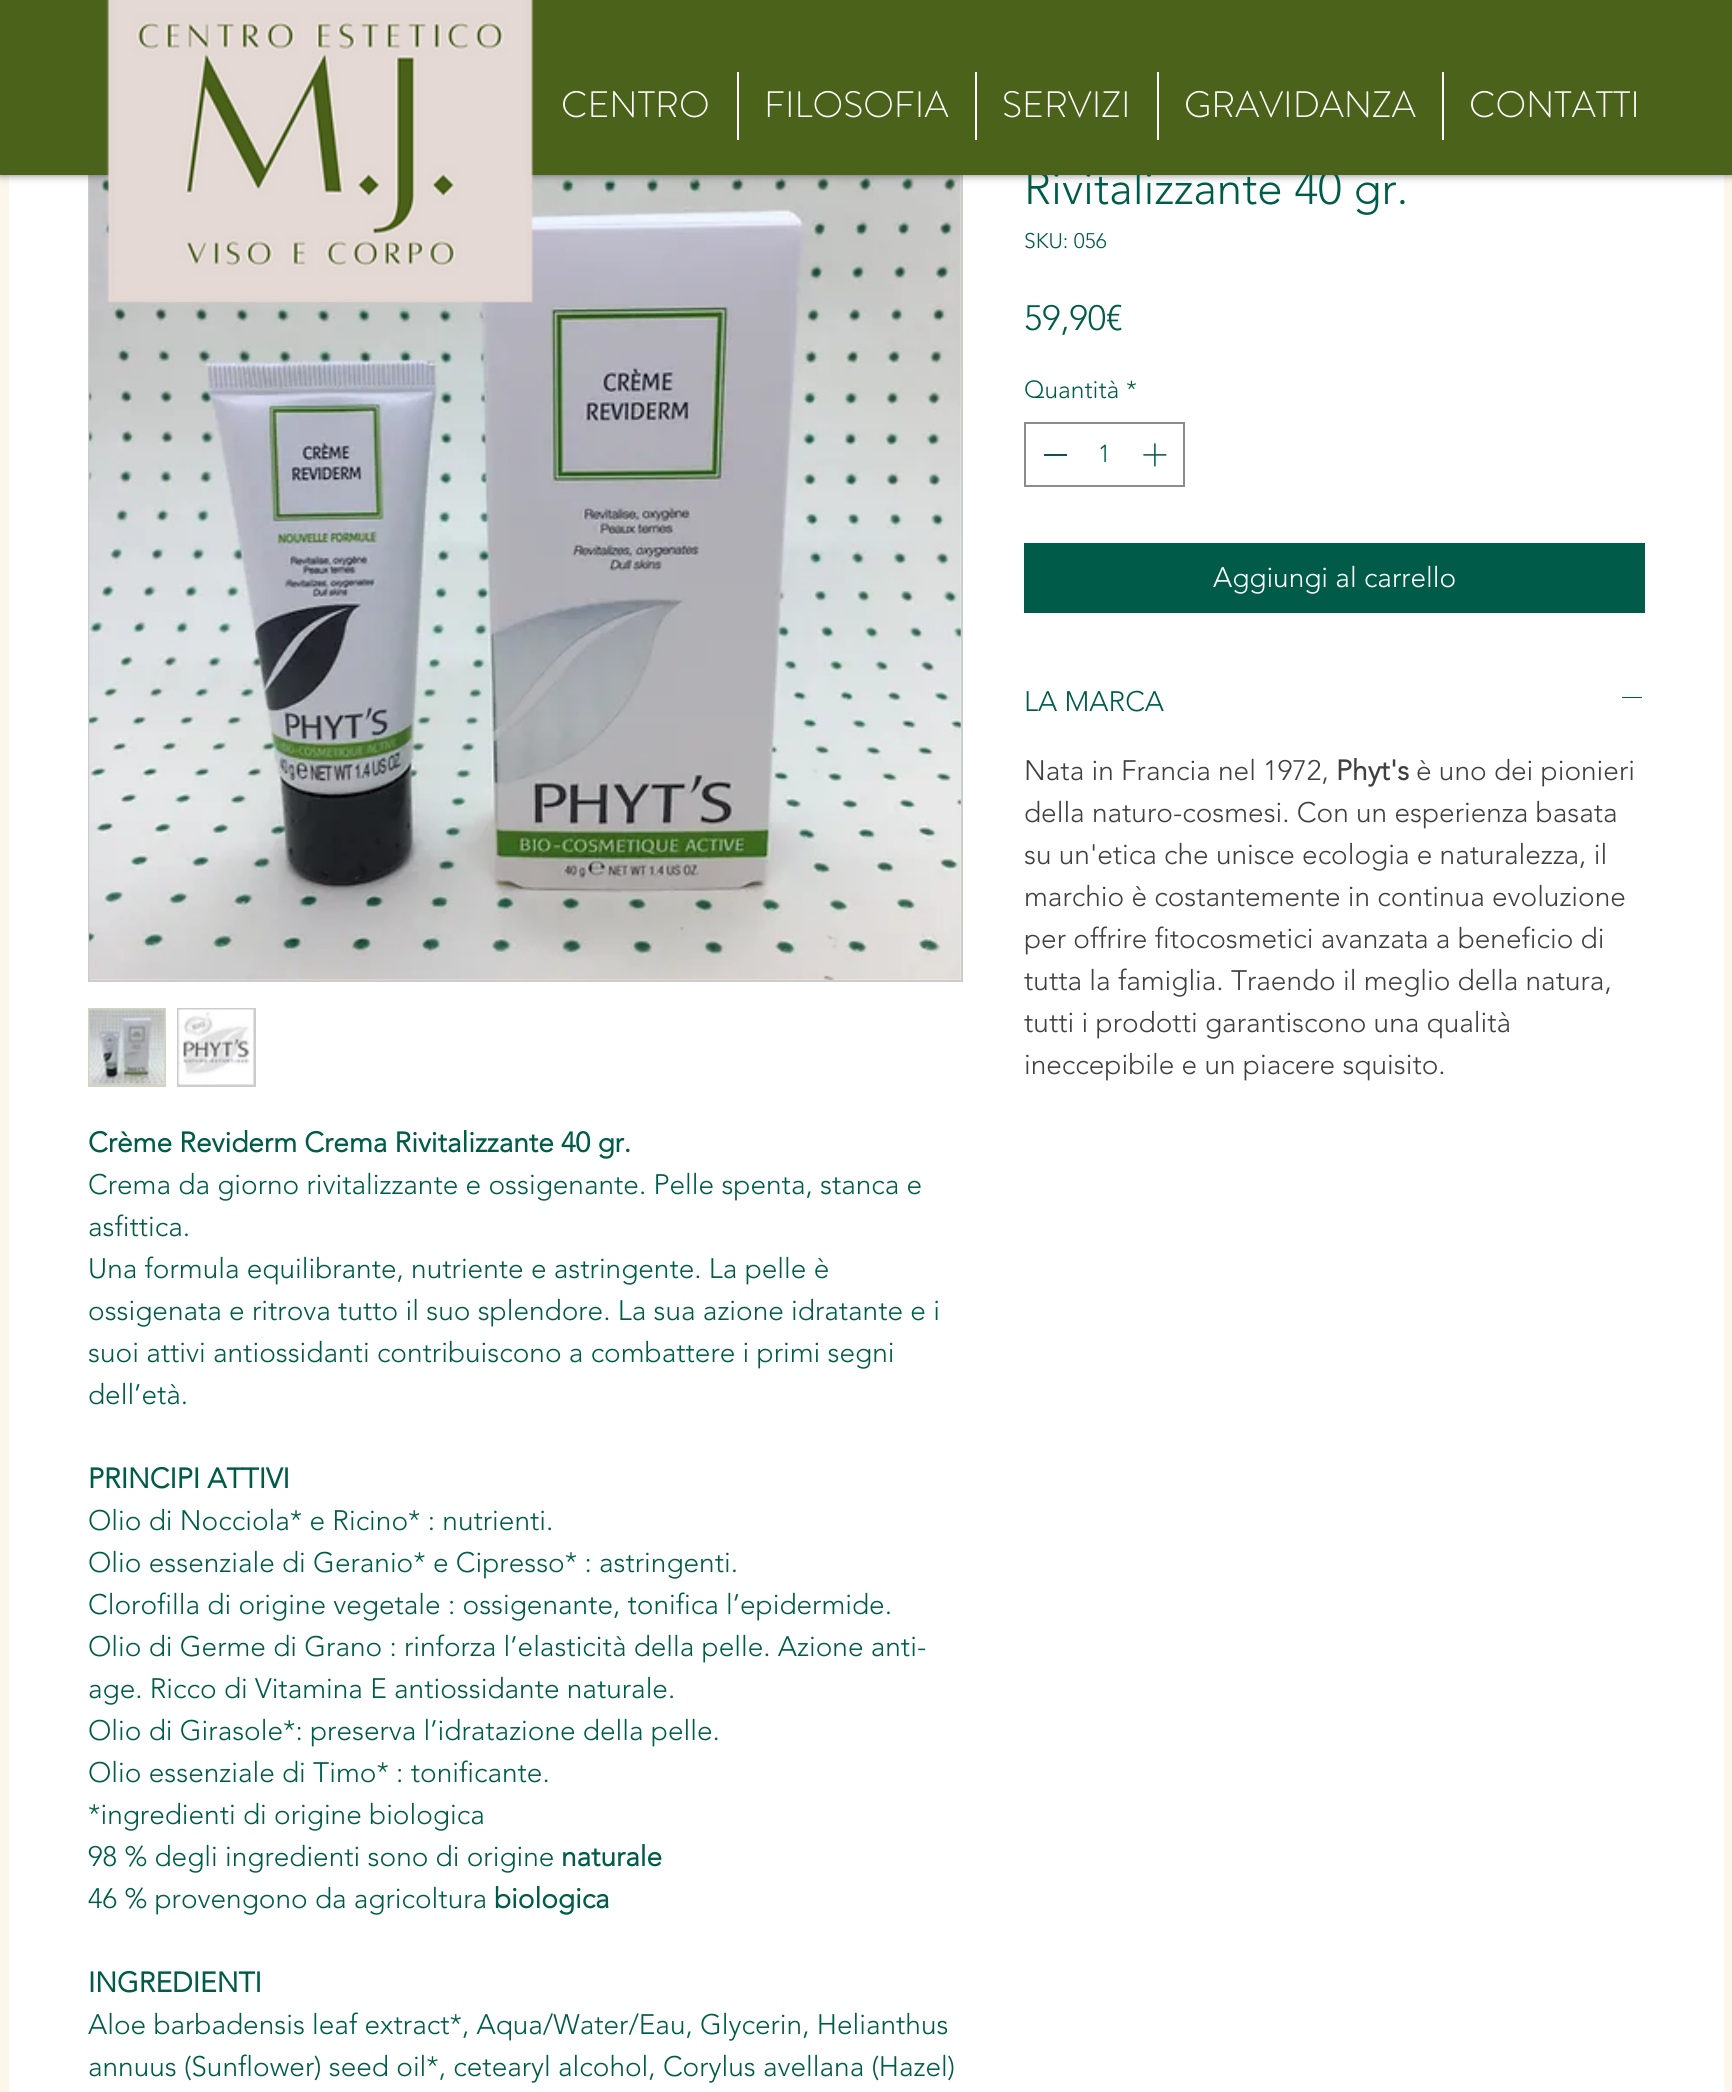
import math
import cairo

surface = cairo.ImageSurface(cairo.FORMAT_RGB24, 1732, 2092)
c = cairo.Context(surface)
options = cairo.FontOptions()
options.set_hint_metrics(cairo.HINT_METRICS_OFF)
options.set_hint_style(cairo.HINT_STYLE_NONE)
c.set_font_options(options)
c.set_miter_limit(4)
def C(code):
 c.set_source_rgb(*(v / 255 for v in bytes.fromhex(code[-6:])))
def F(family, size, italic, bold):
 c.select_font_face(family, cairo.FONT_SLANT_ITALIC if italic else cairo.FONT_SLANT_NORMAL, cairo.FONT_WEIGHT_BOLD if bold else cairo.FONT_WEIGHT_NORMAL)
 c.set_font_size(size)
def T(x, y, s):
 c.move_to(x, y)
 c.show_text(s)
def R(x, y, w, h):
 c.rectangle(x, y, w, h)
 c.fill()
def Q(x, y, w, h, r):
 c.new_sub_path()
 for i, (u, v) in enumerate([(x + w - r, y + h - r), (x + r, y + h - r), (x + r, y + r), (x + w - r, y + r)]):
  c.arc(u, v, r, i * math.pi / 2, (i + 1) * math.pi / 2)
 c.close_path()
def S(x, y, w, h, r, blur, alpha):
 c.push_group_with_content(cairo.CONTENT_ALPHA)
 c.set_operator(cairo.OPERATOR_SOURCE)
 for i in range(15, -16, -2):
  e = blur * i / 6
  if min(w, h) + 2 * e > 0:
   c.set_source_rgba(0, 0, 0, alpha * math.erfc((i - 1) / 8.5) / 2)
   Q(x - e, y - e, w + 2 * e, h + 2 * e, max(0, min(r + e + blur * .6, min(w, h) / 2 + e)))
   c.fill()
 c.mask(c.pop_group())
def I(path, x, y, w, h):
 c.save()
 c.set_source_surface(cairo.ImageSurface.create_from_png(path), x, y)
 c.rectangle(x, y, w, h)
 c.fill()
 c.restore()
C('fdf6eb')
c.paint()
C('ffffff')
R(9,175,1715,1917)
c.rectangle(89,108,873,873)
C('cccccc')
c.stroke()
I('3.png',89,175,872,805)
C('000000')
S(0,0,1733,175,0,4.5,.5)
F('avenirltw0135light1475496 Light',45.5,0,0)
C('005c48')
T(1024,204,'Rivitalizzante 40 gr.')
C('4b621a')
R(0,0,1732,175)
I('1.png',106,0,428,303)
F('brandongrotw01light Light',36.75,0,0)
C('ffffff')
T(561,117,'CENTRO')
R(737,72,2,68)
T(764,117,'FILOSOFIA')
R(975,72,2,68)
T(1002,117,'SERVIZI')
R(1157,72,2,68)
T(1184,117,'GRAVIDANZA')
R(1442,72,2,68)
T(1469,117,'CONTATTI')
F('avenirltw0135light1475496 Light',21,0,0)
C('005c48')
T(1024,248,'SKU: 056')
F('avenirltw0135light1475496 Light',35,0,0)
T(1024,330,'59,90€')
F('avenirltw0135light1475496 Light',24.5,0,0)
T(1024,398,'Quantità')
T(1126,398,'*')
c.rectangle(1025,423,159,63)
C('8c8c8d')
c.stroke()
C('005c48')
R(1044,454,23,2)
T(1098,462,'1')
I('2.png',1143,443,24,24)
R(1024,543,621,70)
F('avenirltw0135light1475496 Light',28,0,0)
C('ffffff')
T(1213,587,'Aggiungi al carrello')
C('005c48')
T(1024,711,'LA MARCA')
R(1622,697,20,1)
C('404041')
T(1024,780,'Nata in Francia nel 1972,')
F('avenirltw0135light1475496',28,0,1)
T(1336,780,'Phyt\'s')
F('avenirltw0135light1475496 Light',28,0,0)
T(1416,780,'è uno dei pionieri')
T(1024,822,'della naturo-cosmesi. Con un esperienza basata')
T(1024,864,'su un\'etica che unisce ecologia e naturalezza, il')
T(1024,906,'marchio è costantemente in continua evoluzione')
T(1024,948,'per offrire fitocosmetici avanzata a beneficio di')
T(1024,990,'tutta la famiglia. Traendo il meglio della natura,')
T(1024,1032,'tutti i prodotti garantiscono una qualità')
T(1024,1074,'ineccepibile e un piacere squisito.')
C('cccccc')
R(90,1084,74,1)
c.rectangle(89,1009,76,77)
C('cfd5bf')
c.stroke()
I('4.png',89,1009,76,76)
C('cccccc')
R(177,1008,79,79)
I('5.png',178,1009,76,76)
F('avenirltw0135light1475496',28,0,1)
C('005c48')
T(88,1152,'Crème Reviderm Crema Rivitalizzante 40 gr.')
F('avenirltw0135light1475496 Light',28,0,0)
T(88,1194,'Crema da giorno rivitalizzante e ossigenante. Pelle spenta, stanca e')
T(88,1236,'asfittica.')
T(88,1278,'Una formula equilibrante, nutriente e astringente. La pelle è')
T(88,1320,'ossigenata e ritrova tutto il suo splendore. La sua azione idratante e i')
T(88,1362,'suoi attivi antiossidanti contribuiscono a combattere i primi segni')
T(88,1404,'dell’età.')
F('avenirltw0135light1475496',28,0,1)
T(88,1488,'PRINCIPI ATTIVI')
F('avenirltw0135light1475496 Light',28,0,0)
T(88,1530,'Olio di Nocciola* e Ricino* : nutrienti.')
T(88,1572,'Olio essenziale di Geranio* e Cipresso* : astringenti.')
T(88,1614,'Clorofilla di origine vegetale : ossigenante, tonifica l’epidermide.')
T(88,1656,'Olio di Germe di Grano : rinforza l’elasticità della pelle. Azione anti-')
T(88,1698,'age. Ricco di Vitamina E antiossidante naturale.')
T(88,1740,'Olio di Girasole*: preserva l’idratazione della pelle.')
T(88,1782,'Olio essenziale di Timo* : tonificante.')
T(88,1824,'*ingredienti di origine biologica')
T(88,1866,'98 % degli ingredienti sono di origine')
F('avenirltw0135light1475496',28,0,1)
T(561,1866,'naturale')
F('avenirltw0135light1475496 Light',28,0,0)
T(88,1908,'46 % provengono da agricoltura')
F('avenirltw0135light1475496',28,0,1)
T(494,1908,'biologica')
T(88,1992,'INGREDIENTI')
F('avenirltw0135light1475496 Light',28,0,0)
T(88,2034,'Aloe barbadensis leaf extract*, Aqua/Water/Eau, Glycerin, Helianthus')
T(88,2076,'annuus (Sunflower) seed oil*, cetearyl alcohol, Corylus avellana (Hazel)')
surface.write_to_png('o.png')
